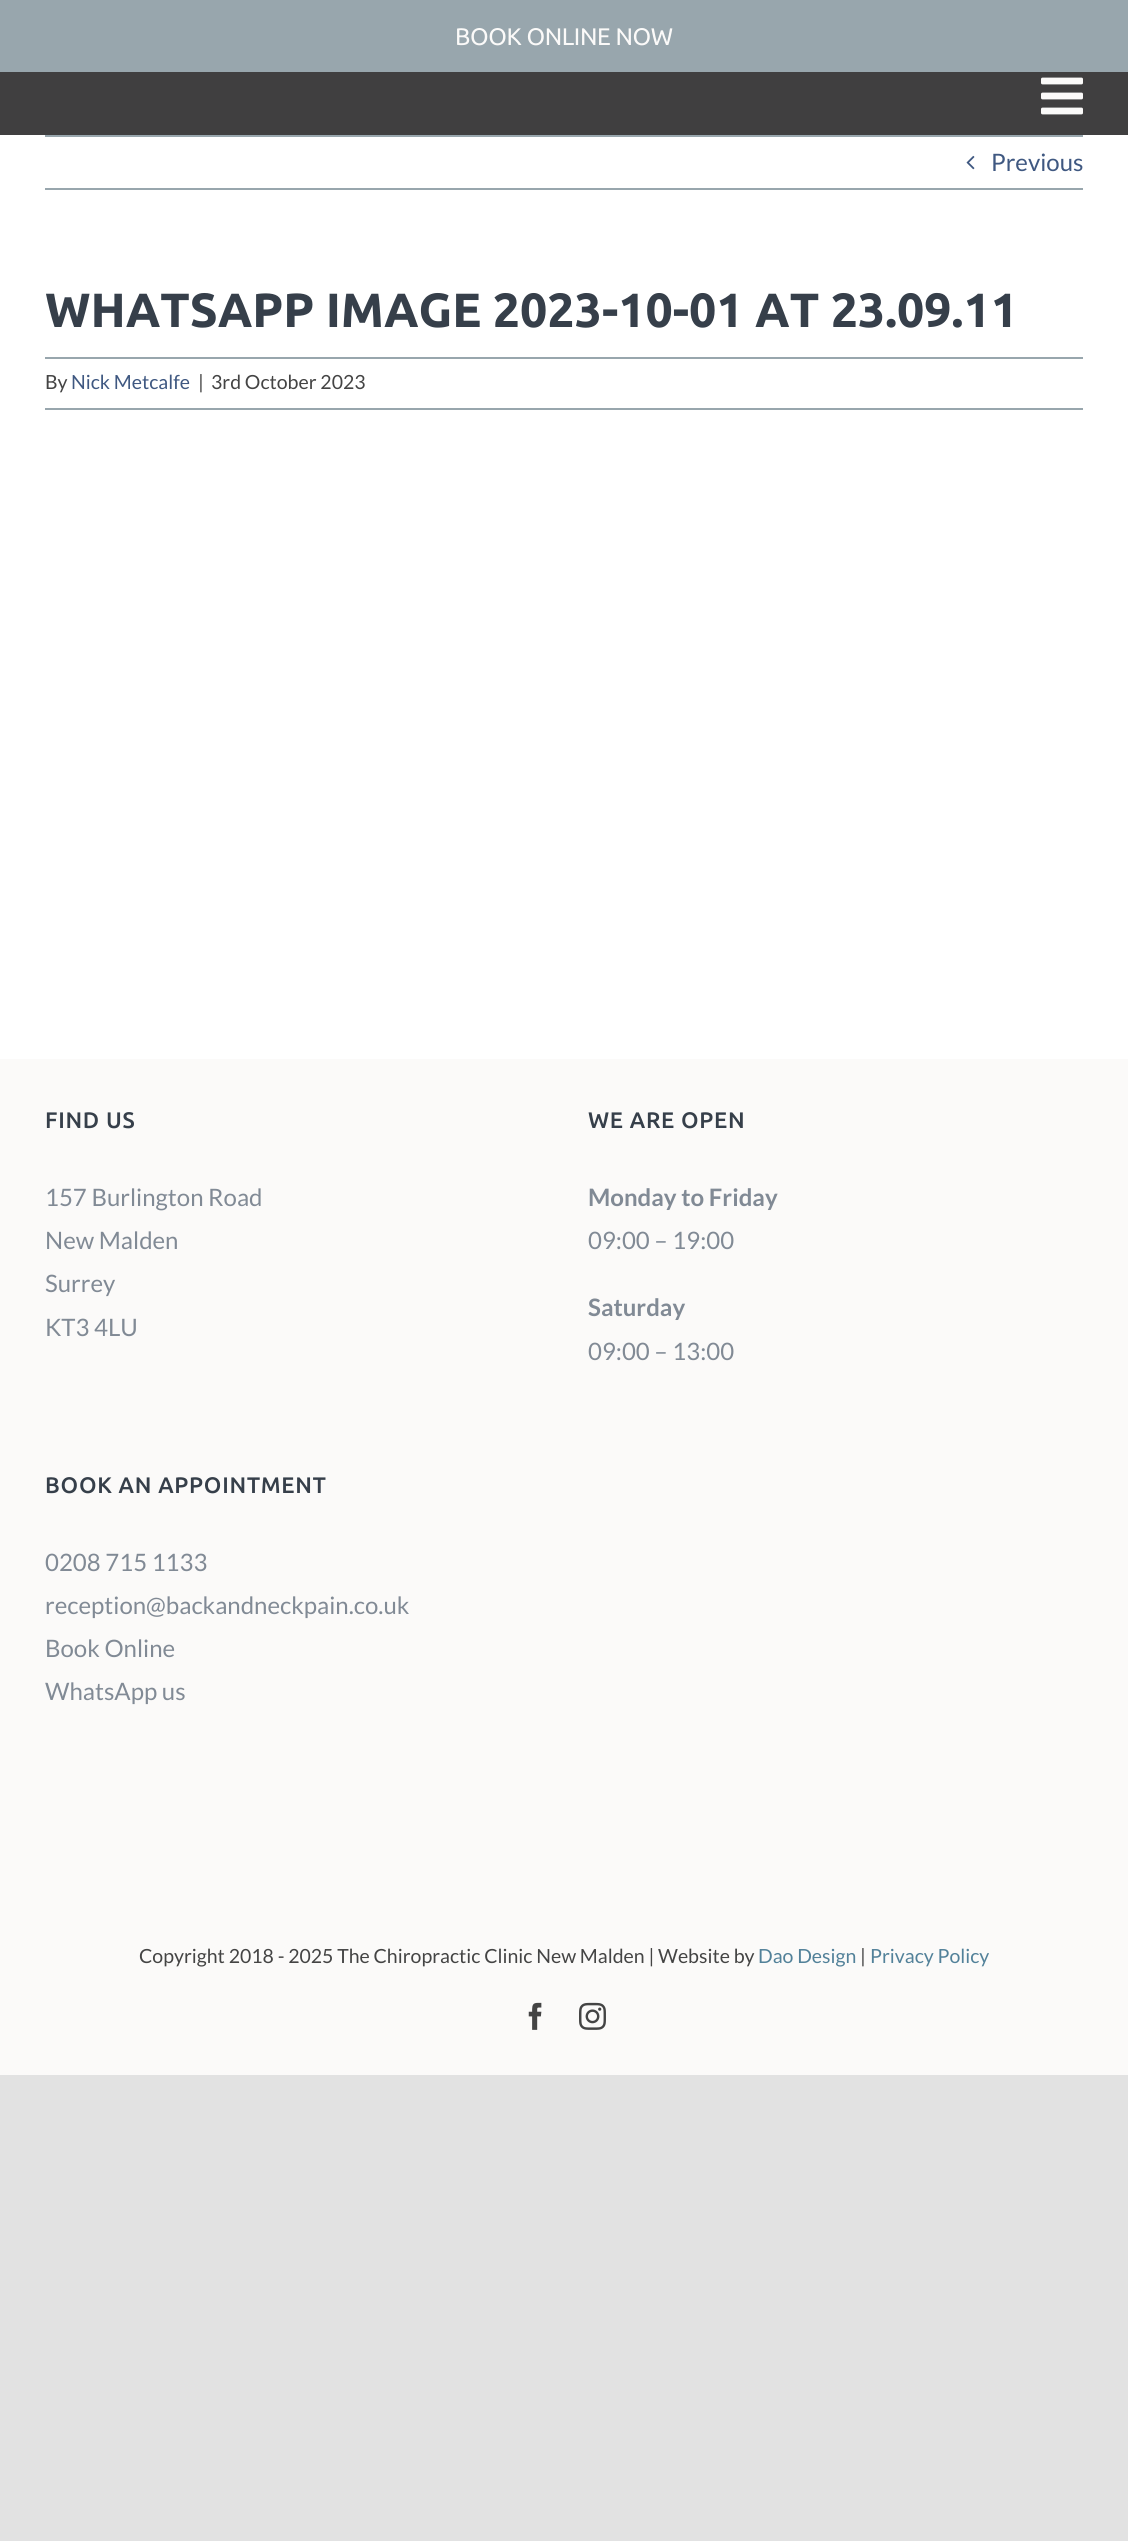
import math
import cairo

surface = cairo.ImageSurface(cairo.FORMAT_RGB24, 1128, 2541)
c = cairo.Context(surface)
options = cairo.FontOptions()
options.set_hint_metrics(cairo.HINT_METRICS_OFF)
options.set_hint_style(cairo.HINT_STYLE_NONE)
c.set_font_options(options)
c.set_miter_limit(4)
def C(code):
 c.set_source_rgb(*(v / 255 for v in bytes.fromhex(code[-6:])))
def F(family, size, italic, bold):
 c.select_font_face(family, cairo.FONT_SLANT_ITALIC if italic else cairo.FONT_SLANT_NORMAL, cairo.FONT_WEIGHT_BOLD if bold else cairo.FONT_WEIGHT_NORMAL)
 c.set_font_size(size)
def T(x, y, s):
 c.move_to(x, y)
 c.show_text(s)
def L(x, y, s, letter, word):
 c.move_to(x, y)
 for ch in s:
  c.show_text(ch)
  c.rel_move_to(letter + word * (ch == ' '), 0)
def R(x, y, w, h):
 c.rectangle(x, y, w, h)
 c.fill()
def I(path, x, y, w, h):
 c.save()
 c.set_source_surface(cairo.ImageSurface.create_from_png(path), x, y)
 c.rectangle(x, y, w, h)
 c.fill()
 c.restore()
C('e2e2e2')
c.paint()
C('ffffff')
R(0,135,1128,924)
C('98a6ad')
R(0,0,1128,72)
F('Ubuntu',24,0,0)
C('fbfaf9')
L(455,45,'BOOK ONLINE NOW',-.4,0)
C('403f40')
R(0,72,1128,63)
I('1.png',1041,77,42,38)
C('98a6ad')
R(45,135,1038,2)
R(45,188,1038,2)
I('2.png',966,155,9,15)
F('Lato',24,0,0)
C('3f5881')
T(991,171,'Previous')
F('Ubuntu',48,0,1)
C('363f4a')
T(45,327,'WHATSAPP IMAGE 2023-10-01 AT 23.09.11')
C('98a6ad')
R(45,357,1038,2)
R(45,408,1038,2)
F('Lato',19.5,0,0)
C('444444')
T(45,389,'By')
C('3f5881')
T(71,389,'Nick Metcalfe')
C('444444')
T(198,389,'|')
T(211,389,'3rd October 2023')
C('fbfaf9')
R(0,1059,1128,1016)
F('Ubuntu Medium',22.5,0,0)
C('363f4a')
L(45,1128,'FIND US',.75,0)
F('Lato',24,0,0)
C('818a95')
T(45,1206,'157 Burlington Road')
T(45,1249,'New Malden')
T(45,1292,'Surrey')
T(45,1336,'KT3 4LU')
F('Ubuntu Medium',22.5,0,0)
C('363f4a')
L(588,1128,'WE ARE OPEN',.75,0)
F('Lato',24,0,1)
C('818a95')
T(588,1206,'Monday to Friday')
F('Lato',24,0,0)
T(588,1249,'09:00 – 19:00')
F('Lato',24,0,1)
T(588,1316,'Saturday')
F('Lato',24,0,0)
T(588,1360,'09:00 – 13:00')
F('Ubuntu Medium',22.5,0,0)
C('363f4a')
L(45,1493,'BOOK AN APPOINTMENT',.75,0)
F('Lato',24,0,0)
C('818a95')
T(45,1571,'0208 715 1133')
T(45,1614,'reception@backandneckpain.co.uk')
T(45,1657,'Book Online')
T(45,1700,'WhatsApp us')
F('Lato',19.5,0,0)
C('444444')
T(139,1963,'Copyright 2018 - 2025 The Chiropractic Clinic New Malden | Website by')
C('528199')
T(758,1963,'Dao Design')
C('444444')
T(860,1963,'|')
C('528199')
T(870,1963,'Privacy Policy')
I('3.png',528,2002,14,28)
I('4.png',579,2002,27,28)
surface.write_to_png('o.png')
